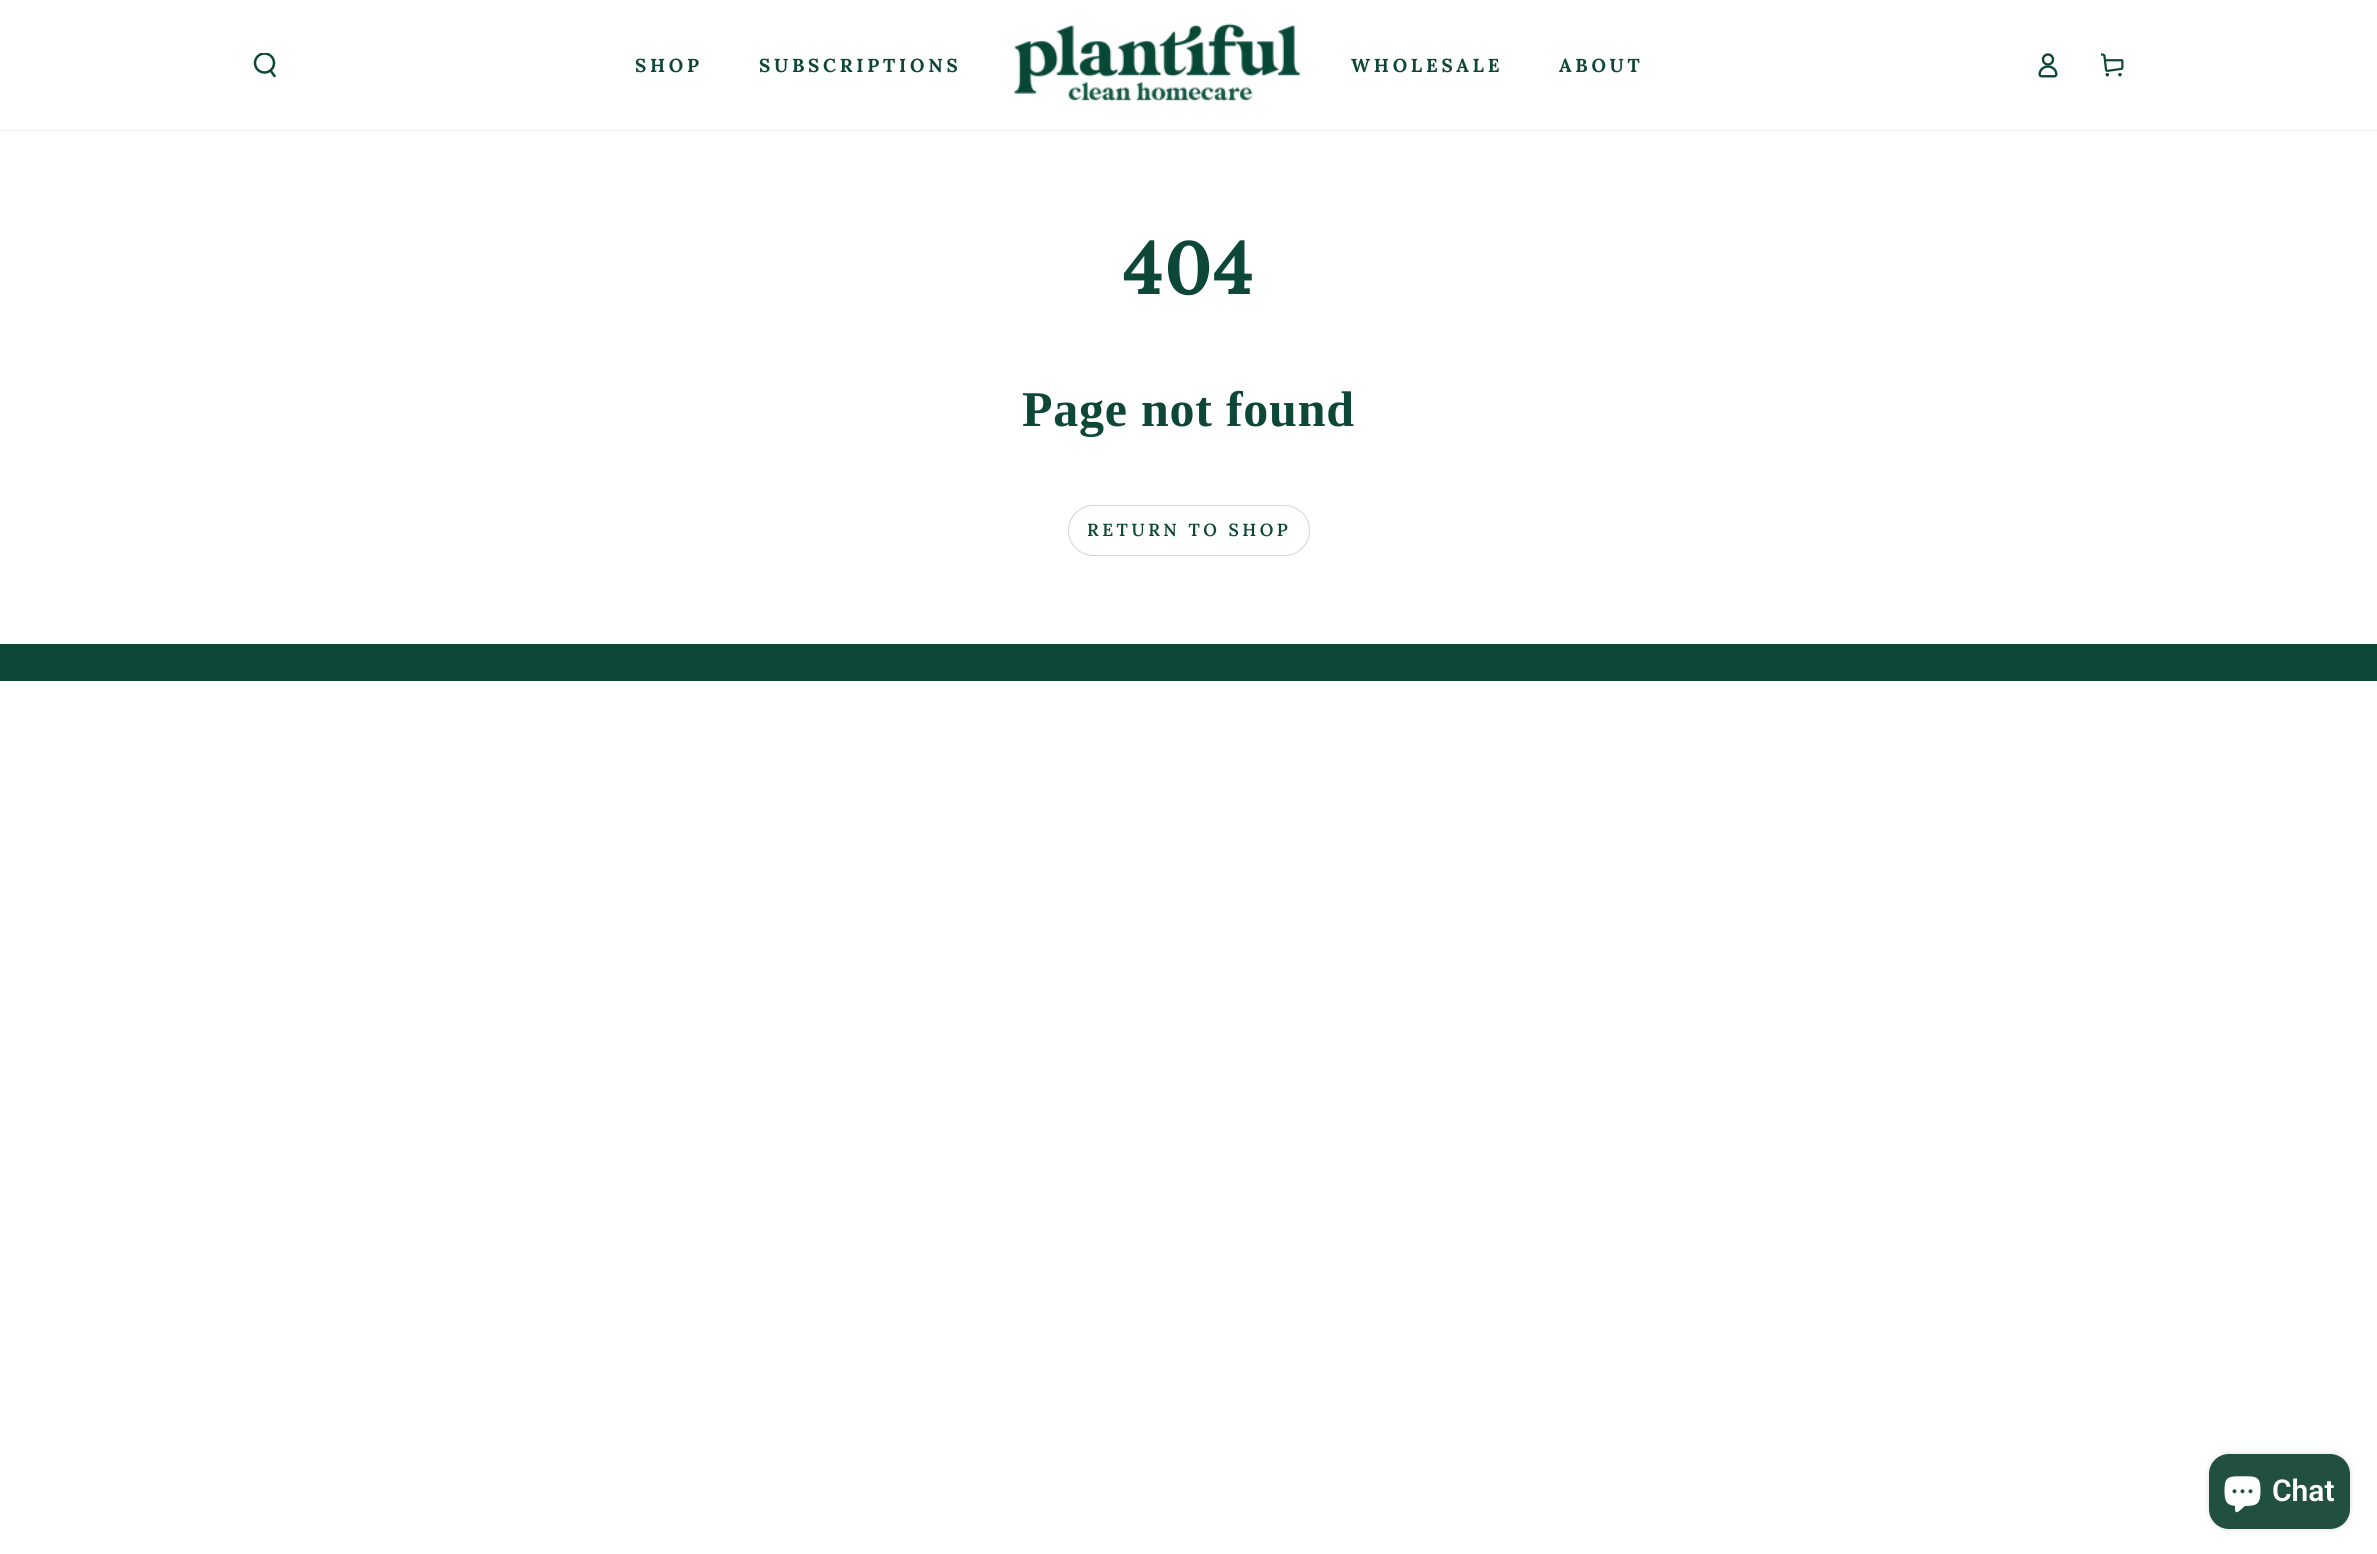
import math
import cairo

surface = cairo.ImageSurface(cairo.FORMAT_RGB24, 2377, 1554)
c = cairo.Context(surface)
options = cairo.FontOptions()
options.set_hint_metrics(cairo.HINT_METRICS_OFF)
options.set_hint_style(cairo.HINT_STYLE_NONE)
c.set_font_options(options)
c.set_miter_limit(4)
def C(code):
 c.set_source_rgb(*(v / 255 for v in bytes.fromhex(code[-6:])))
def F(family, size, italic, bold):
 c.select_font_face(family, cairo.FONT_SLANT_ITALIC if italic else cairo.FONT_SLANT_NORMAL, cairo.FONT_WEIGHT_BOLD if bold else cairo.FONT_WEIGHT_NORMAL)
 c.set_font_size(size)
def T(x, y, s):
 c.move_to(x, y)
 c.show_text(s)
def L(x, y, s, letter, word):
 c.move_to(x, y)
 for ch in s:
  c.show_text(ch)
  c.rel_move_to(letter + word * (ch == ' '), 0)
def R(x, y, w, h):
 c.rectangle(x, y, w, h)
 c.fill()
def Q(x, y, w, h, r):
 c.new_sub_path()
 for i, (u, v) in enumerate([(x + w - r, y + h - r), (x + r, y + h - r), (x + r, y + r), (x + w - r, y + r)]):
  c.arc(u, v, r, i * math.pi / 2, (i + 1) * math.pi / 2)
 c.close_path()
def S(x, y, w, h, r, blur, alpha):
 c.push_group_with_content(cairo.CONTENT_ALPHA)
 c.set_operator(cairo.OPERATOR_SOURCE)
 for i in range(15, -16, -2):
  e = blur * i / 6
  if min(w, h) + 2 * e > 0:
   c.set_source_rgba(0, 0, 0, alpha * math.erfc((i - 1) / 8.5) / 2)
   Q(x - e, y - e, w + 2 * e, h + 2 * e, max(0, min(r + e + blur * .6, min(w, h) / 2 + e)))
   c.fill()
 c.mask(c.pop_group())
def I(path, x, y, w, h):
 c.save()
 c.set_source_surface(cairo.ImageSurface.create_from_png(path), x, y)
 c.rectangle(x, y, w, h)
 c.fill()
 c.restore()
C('ffffff')
c.paint()
C('f2f2f4')
c.new_path()
c.move_to(0,130)
c.line_to(0,131)
c.line_to(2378,131)
c.line_to(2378,1)
c.line_to(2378,130)
c.close_path()
c.fill()
c.save()
c.rectangle(253,53,25,25)
c.clip()
c.arc(264.5,63,9.5,0,2 * math.pi)
C('0c4737')
c.set_line_width(2.5)
c.stroke()
c.restore()
c.new_path()
c.move_to(270.5,70.5)
c.line_to(274.5,76)
C('0c4737')
c.set_line_width(2.5)
c.set_line_cap(cairo.LINE_CAP_ROUND)
c.stroke()
F('Lora',18.75,0,1)
L(635,72,'SHOP',3.75,0)
L(759,72,'SUBSCRIPTIONS',3.75,0)
I('1.png',1013,23,288,79)
L(1351,72,'WHOLESALE',3.75,0)
L(1559,72,'ABOUT',3.75,0)
I('2.png',2038,53,20,25)
I('3.png',2101,53,23,24)
F('Lora',75,0,1)
L(1123,294,'404',.75,0)
F('Liberation Serif',50,0,1)
L(1022,426,'Page not found',.75,0)
Q(1068.5,505.5,241,50,25)
C('d2d5d9')
c.set_line_width(1)
c.set_line_cap(cairo.LINE_CAP_BUTT)
c.stroke()
F('Lora SemiBold',17.5,0,0)
C('0c4737')
L(1087,536,'RETURN TO SHOP',3.5,0)
R(0,644,2377,37)
C('000000')
S(2209,1454,141,75,20,3,.15)
C('214f40')
Q(2209,1454,141,75,20)
c.fill()
I('4.png',2224,1476,37,37)
F('Roboto SemiBold',30,0,0)
C('ffffff')
T(2272,1501,'Chat')
surface.write_to_png('o.png')
